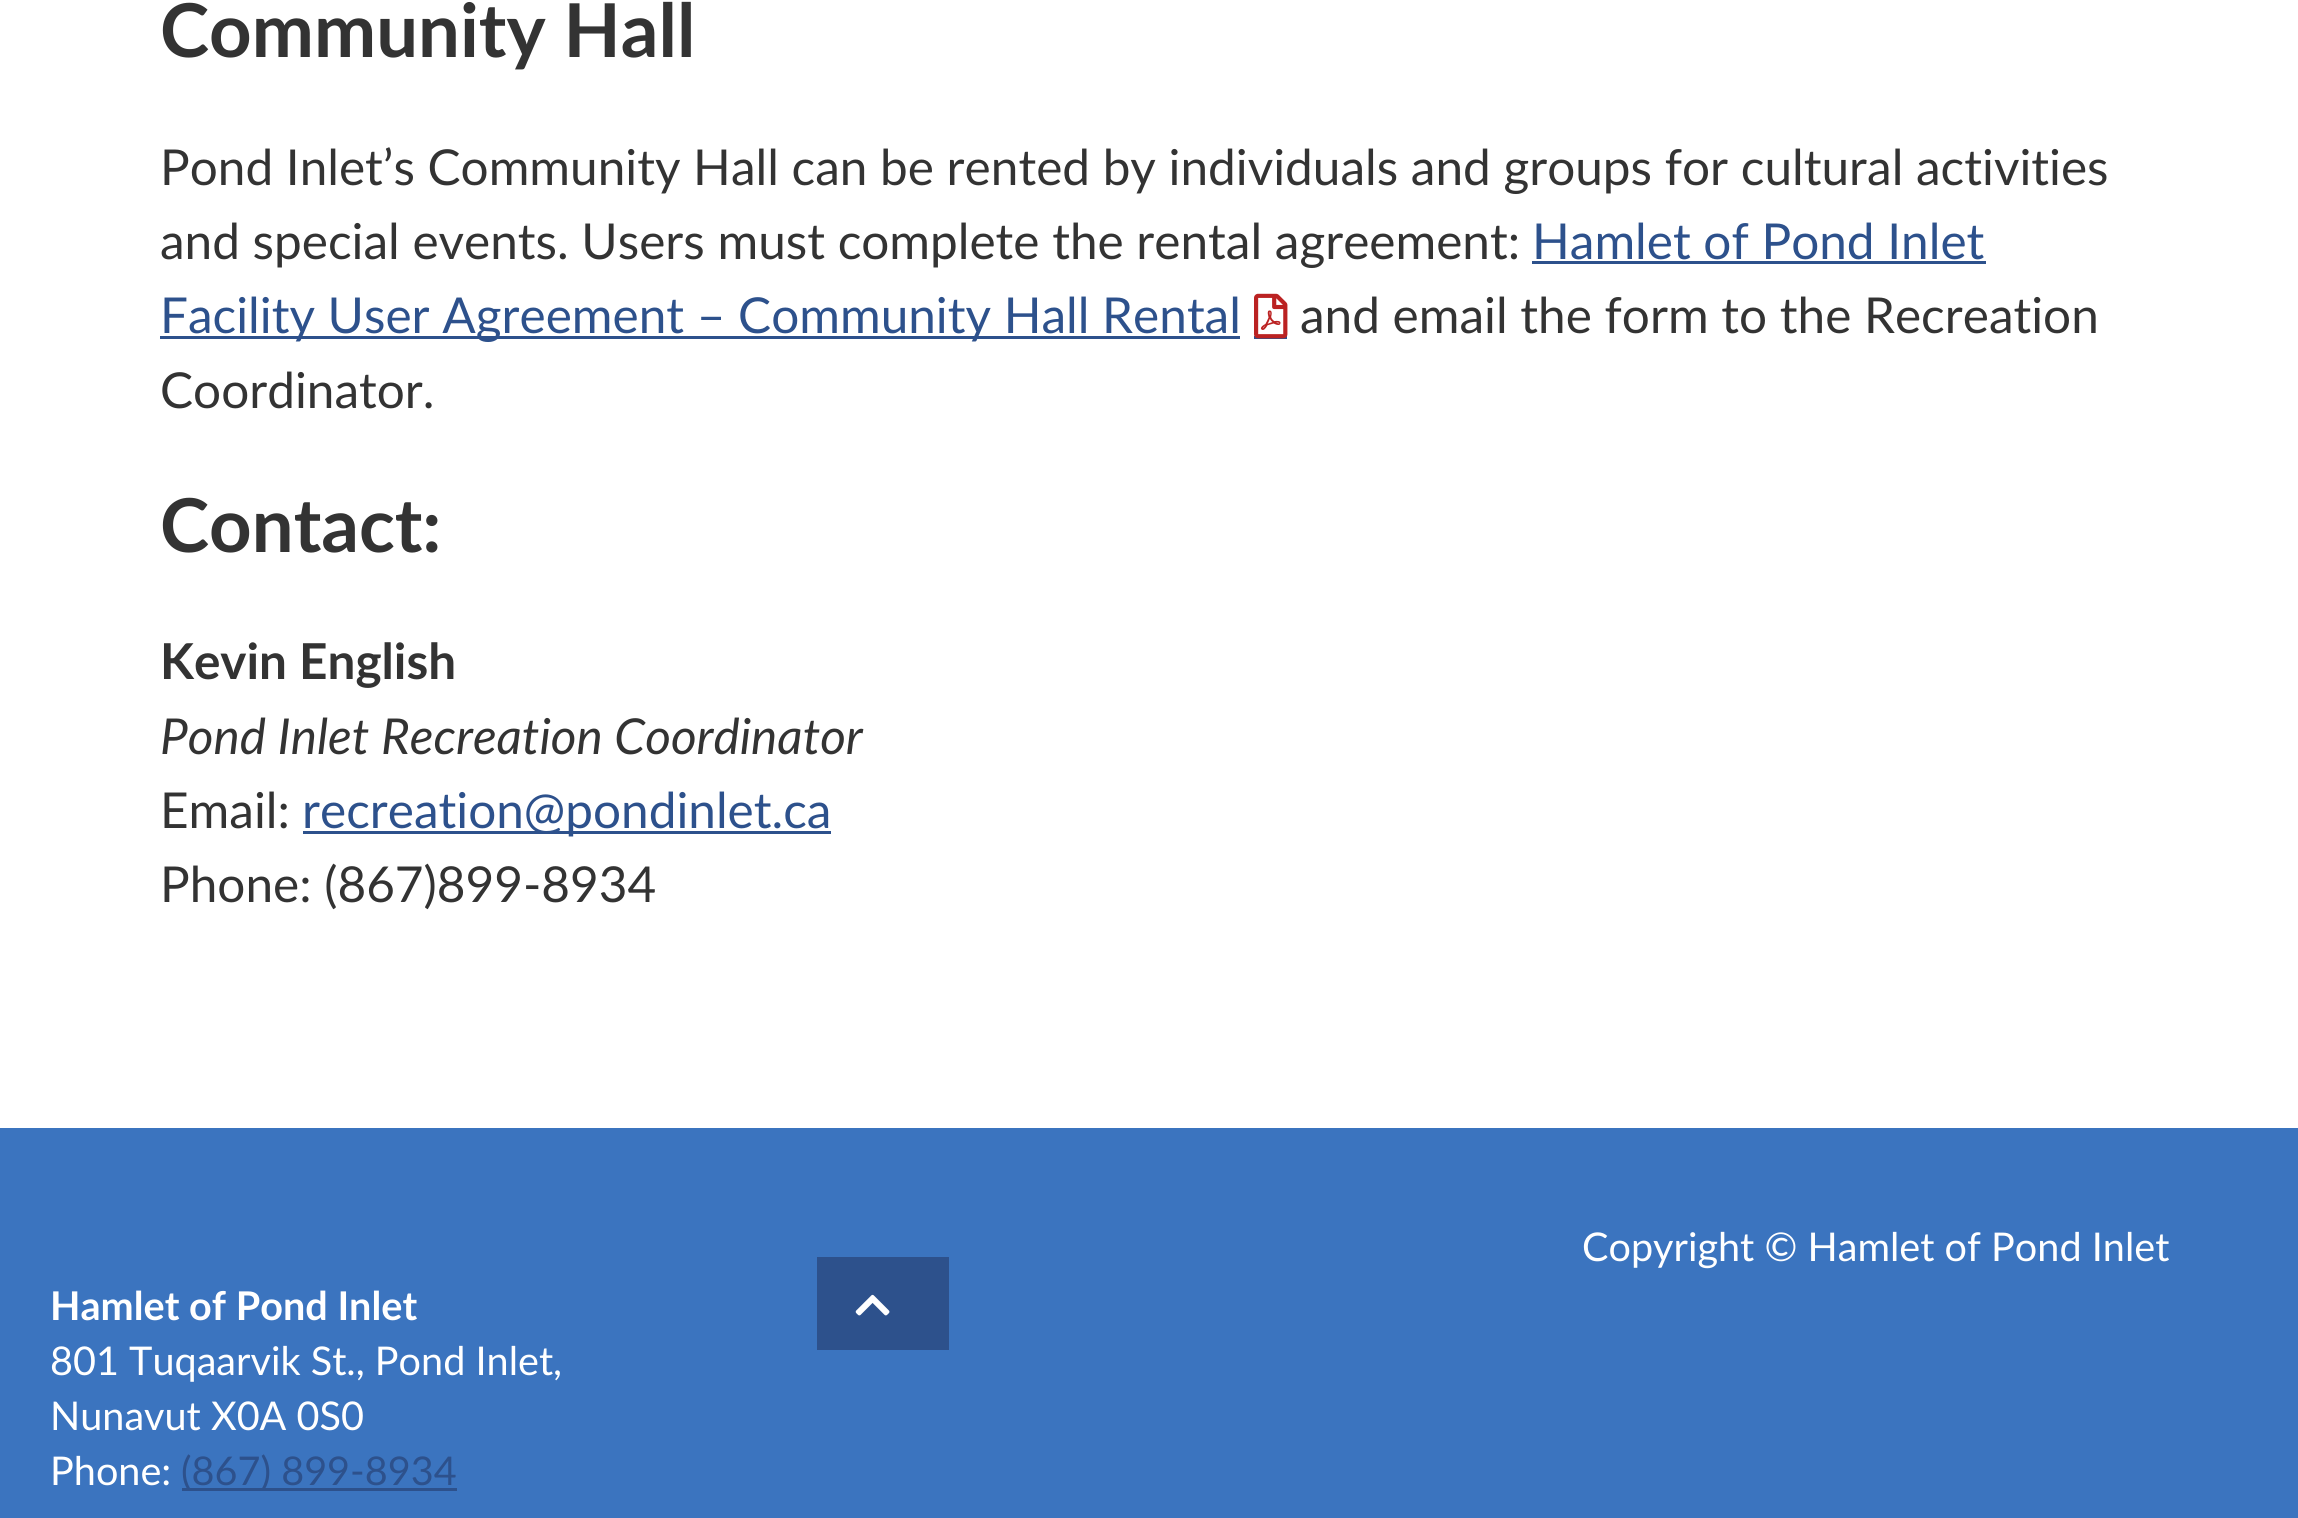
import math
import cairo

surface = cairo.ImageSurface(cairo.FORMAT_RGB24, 2298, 1518)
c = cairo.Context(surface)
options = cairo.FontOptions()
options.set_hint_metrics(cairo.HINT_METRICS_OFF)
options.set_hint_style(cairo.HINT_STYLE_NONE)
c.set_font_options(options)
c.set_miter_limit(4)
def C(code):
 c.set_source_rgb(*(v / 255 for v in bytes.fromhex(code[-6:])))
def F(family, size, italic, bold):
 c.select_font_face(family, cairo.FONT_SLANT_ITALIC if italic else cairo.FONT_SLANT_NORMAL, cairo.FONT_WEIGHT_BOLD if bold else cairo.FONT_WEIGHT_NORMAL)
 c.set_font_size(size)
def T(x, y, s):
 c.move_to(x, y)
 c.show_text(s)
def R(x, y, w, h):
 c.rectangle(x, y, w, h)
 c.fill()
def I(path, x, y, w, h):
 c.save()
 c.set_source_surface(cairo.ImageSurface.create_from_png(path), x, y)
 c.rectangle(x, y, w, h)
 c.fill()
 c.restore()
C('ffffff')
c.paint()
F('Lato',74.25,0,1)
C('333333')
T(160,57,'Community Hall')
F('Lato',49.5,0,0)
T(160,185,'Pond Inlet’s Community Hall can be rented by individuals and groups for cultural activities')
T(160,259,'and special events. Users must complete the rental agreement:')
C('2d518c')
T(1532,259,'Hamlet of Pond Inlet')
R(1532,261,454,3)
R(160,336,1080,3)
T(160,333,'Facility User Agreement – Community Hall Rental')
R(1254,336,33,3)
I('1.png',1254,293,34,46)
C('333333')
T(1300,333,'and email the form to the Recreation')
T(160,408,'Coordinator.')
F('Lato',74.25,0,1)
T(160,552,'Contact:')
F('Lato',49.5,0,1)
T(160,679,'Kevin English')
F('Lato',49.5,1,0)
T(160,754,'Pond Inlet Recreation Coordinator')
F('Lato',49.5,0,0)
T(160,828,'Email:')
C('2d518c')
R(303,831,528,3)
T(302,828,'recreation@pondinlet.ca')
C('333333')
T(160,902,'Phone: (867)899-8934')
C('3b74bf')
R(0,1128,2298,390)
F('Lato',39.6,0,0)
C('ffffff')
T(1582,1261,'Copyright © Hamlet of Pond Inlet')
F('Lato',39.6,0,1)
T(50,1320,'Hamlet of Pond Inlet')
F('Lato',39.6,0,0)
T(50,1375,'801 Tuqaarvik St., Pond Inlet,')
T(50,1430,'Nunavut X0A 0S0')
T(50,1485,'Phone:')
C('2d518c')
R(182,1488,275,3)
T(181,1485,'(867) 899-8934')
R(817,1257,132,93)
I('2.png',855,1294,35,22)
surface.write_to_png('o.png')
